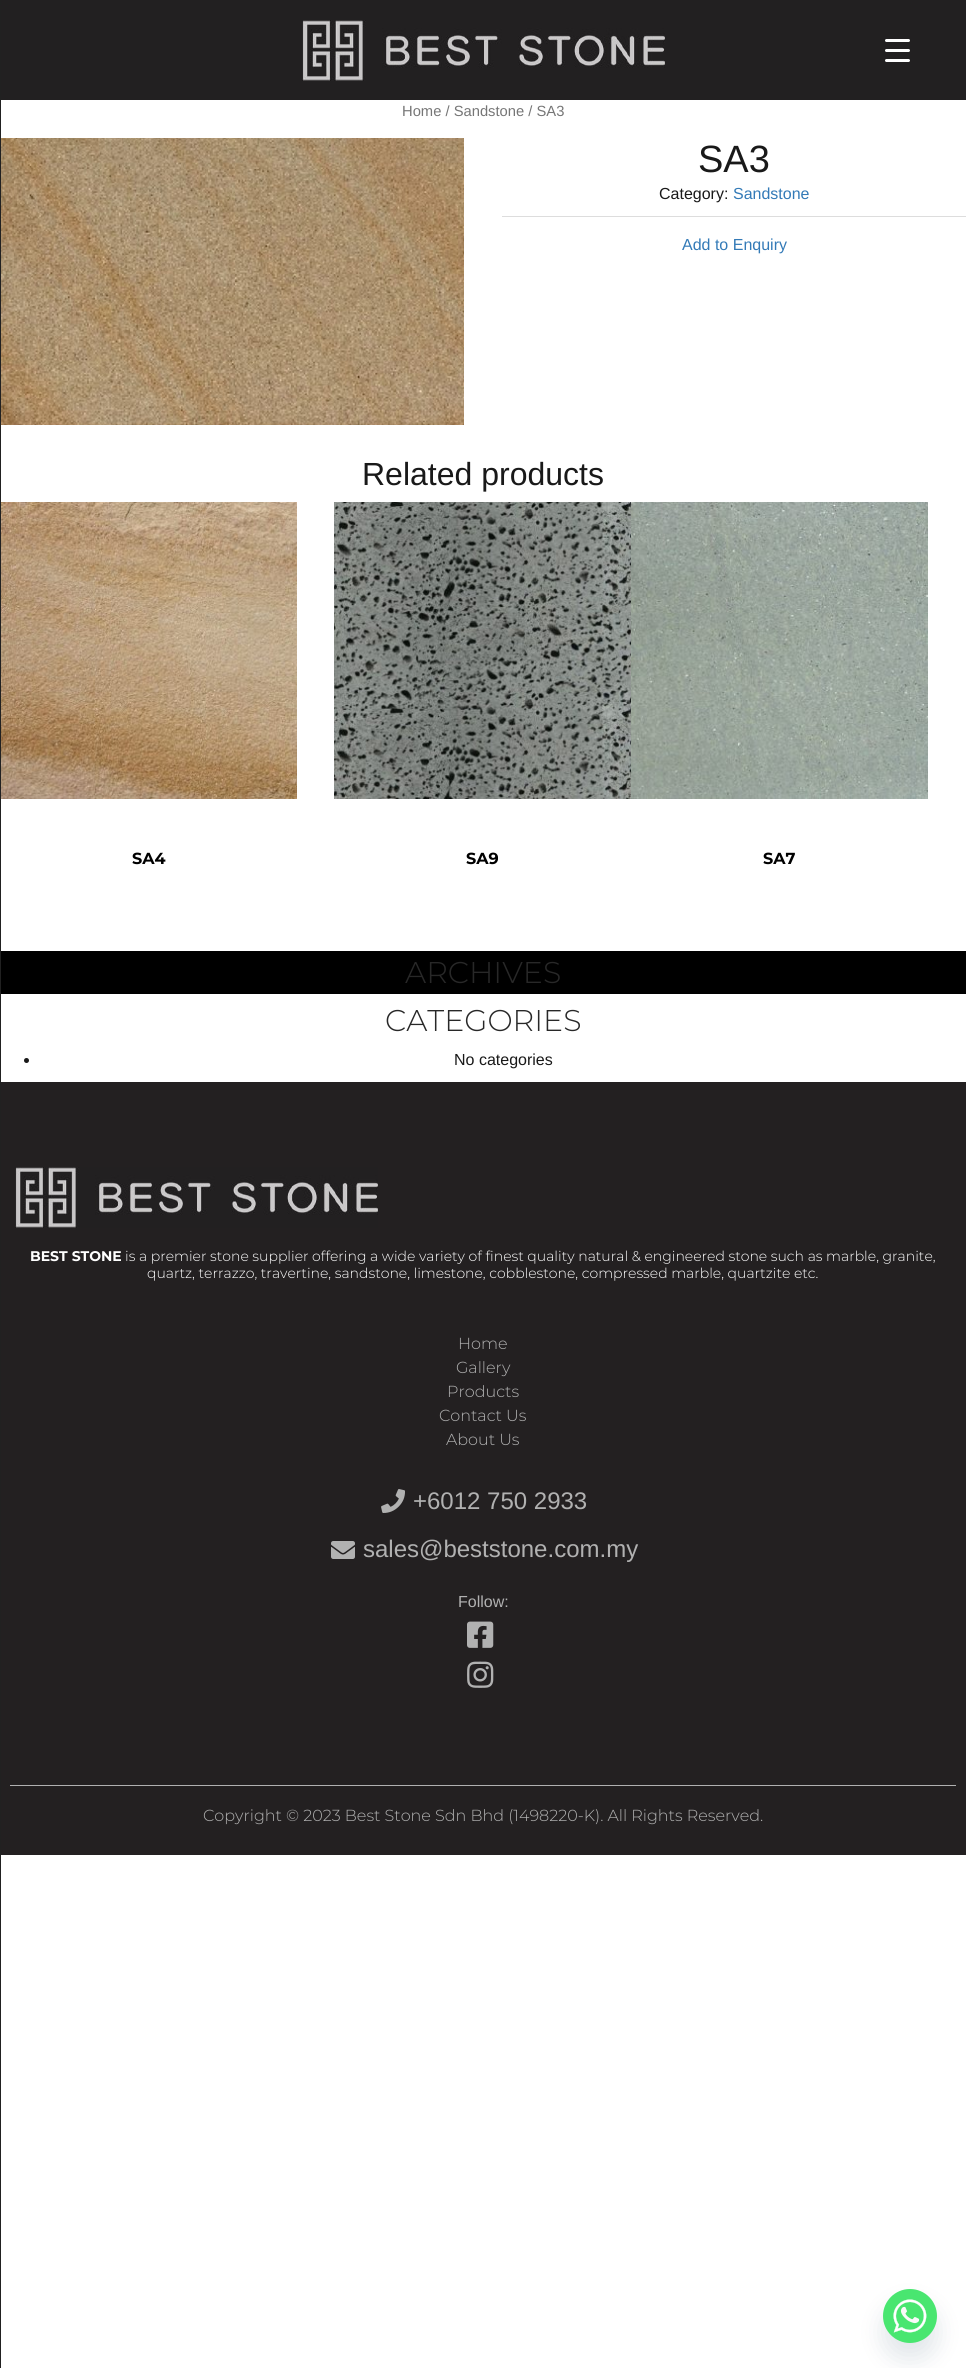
import math
import cairo

surface = cairo.ImageSurface(cairo.FORMAT_RGB24, 966, 2368)
c = cairo.Context(surface)
options = cairo.FontOptions()
options.set_hint_metrics(cairo.HINT_METRICS_OFF)
options.set_hint_style(cairo.HINT_STYLE_NONE)
c.set_font_options(options)
c.set_miter_limit(4)
def C(code):
 c.set_source_rgb(*(v / 255 for v in bytes.fromhex(code[-6:])))
def F(family, size, italic, bold):
 c.select_font_face(family, cairo.FONT_SLANT_ITALIC if italic else cairo.FONT_SLANT_NORMAL, cairo.FONT_WEIGHT_BOLD if bold else cairo.FONT_WEIGHT_NORMAL)
 c.set_font_size(size)
def T(x, y, s):
 c.move_to(x, y)
 c.show_text(s)
def R(x, y, w, h):
 c.rectangle(x, y, w, h)
 c.fill()
def Q(x, y, w, h, r):
 c.new_sub_path()
 for i, (u, v) in enumerate([(x + w - r, y + h - r), (x + r, y + h - r), (x + r, y + r), (x + w - r, y + r)]):
  c.arc(u, v, r, i * math.pi / 2, (i + 1) * math.pi / 2)
 c.close_path()
def S(x, y, w, h, r, blur, alpha):
 c.push_group_with_content(cairo.CONTENT_ALPHA)
 c.set_operator(cairo.OPERATOR_SOURCE)
 for i in range(15, -16, -2):
  e = blur * i / 6
  if min(w, h) + 2 * e > 0:
   c.set_source_rgba(0, 0, 0, alpha * math.erfc((i - 1) / 8.5) / 2)
   Q(x - e, y - e, w + 2 * e, h + 2 * e, max(0, min(r + e + blur * .6, min(w, h) / 2 + e)))
   c.fill()
 c.mask(c.pop_group())
def I(path, x, y, w, h):
 c.save()
 c.set_source_surface(cairo.ImageSurface.create_from_png(path), x, y)
 c.rectangle(x, y, w, h)
 c.fill()
 c.restore()
C('ffffff')
c.paint()
C('212121')
R(0,0,1,2368)
C('222021')
R(1,0,965,100)
I('1.png',302,20,363,61)
C('ffffff')
Q(885,49,25,3,1.5)
c.fill()
Q(885,39,25,3,1.5)
c.fill()
Q(885,59,25,3,1.5)
c.fill()
F('Liberation Sans',14.75,0,0)
C('767676')
T(402,116,'Home / Sandstone / SA3')
I('2.png',1,138,463,287)
F('Liberation Sans',38,0,0)
C('191919')
T(698,172,'SA3')
C('dddddd')
R(502,216,464,1)
F('Liberation Sans',16,0,0)
C('191919')
T(659,199,'Category:')
C('337ab7')
T(733,199,'Sandstone')
T(682,250,'Add to Enquiry')
F('Liberation Sans',32,0,0)
C('191919')
T(362,485,'Related products')
I('3.png',1,502,296,297)
F('Montserrat',16,0,1)
C('000000')
T(132,864,'SA4')
I('4.png',334,502,297,297)
T(466,864,'SA9')
I('5.png',631,502,297,297)
T(763,864,'SA7')
R(1,951,965,43)
F('Montserrat Light',30,0,0)
C('282828')
T(405,983,'ARCHIVES')
T(385,1031,'CATEGORIES')
C('191919')
c.new_path()
c.arc(26.5,1060.5,2.5,0,2 * math.pi)
c.fill()
F('Liberation Sans',16,0,0)
T(454,1065,'No categories')
C('232021')
R(1,1082,965,773)
I('1.png',15,1167,363,61)
F('Montserrat',14,0,1)
C('ffffff')
T(30,1261,'BEST STONE')
F('Montserrat Light',14,0,0)
T(125,1261,'is a premier stone supplier offering a wide variety of finest quality natural & engineered stone such as marble, granite,')
T(147,1278,'quartz, terrazzo, travertine, sandstone, limestone, cobblestone, compressed marble, quartzite etc.')
F('Montserrat Light',16,0,0)
C('b1b1b1')
T(458,1349,'Home')
T(456,1373,'Gallery')
T(447,1397,'Products')
T(439,1421,'Contact Us')
T(446,1445,'About Us')
I('6.png',381,1489,24,24)
F('Liberation Sans',24,0,0)
T(413,1509,'+6012 750 2933')
I('7.png',331,1541,24,18)
T(363,1557,'sales@beststone.com.my')
F('Liberation Sans',16,0,0)
T(458,1607,'Follow:')
I('8.png',467,1621,27,27)
I('9.png',467,1661,27,27)
R(10,1785,946,1)
F('Montserrat Light',16,0,0)
T(203,1821,'Copyright © 2023 Best Stone Sdn Bhd (1498220-K). All Rights Reserved.')
C('49687e')
S(883,2305,54,54,27,12,.16)
I('10.png',883,2289,54,54)
surface.write_to_png('o.png')
